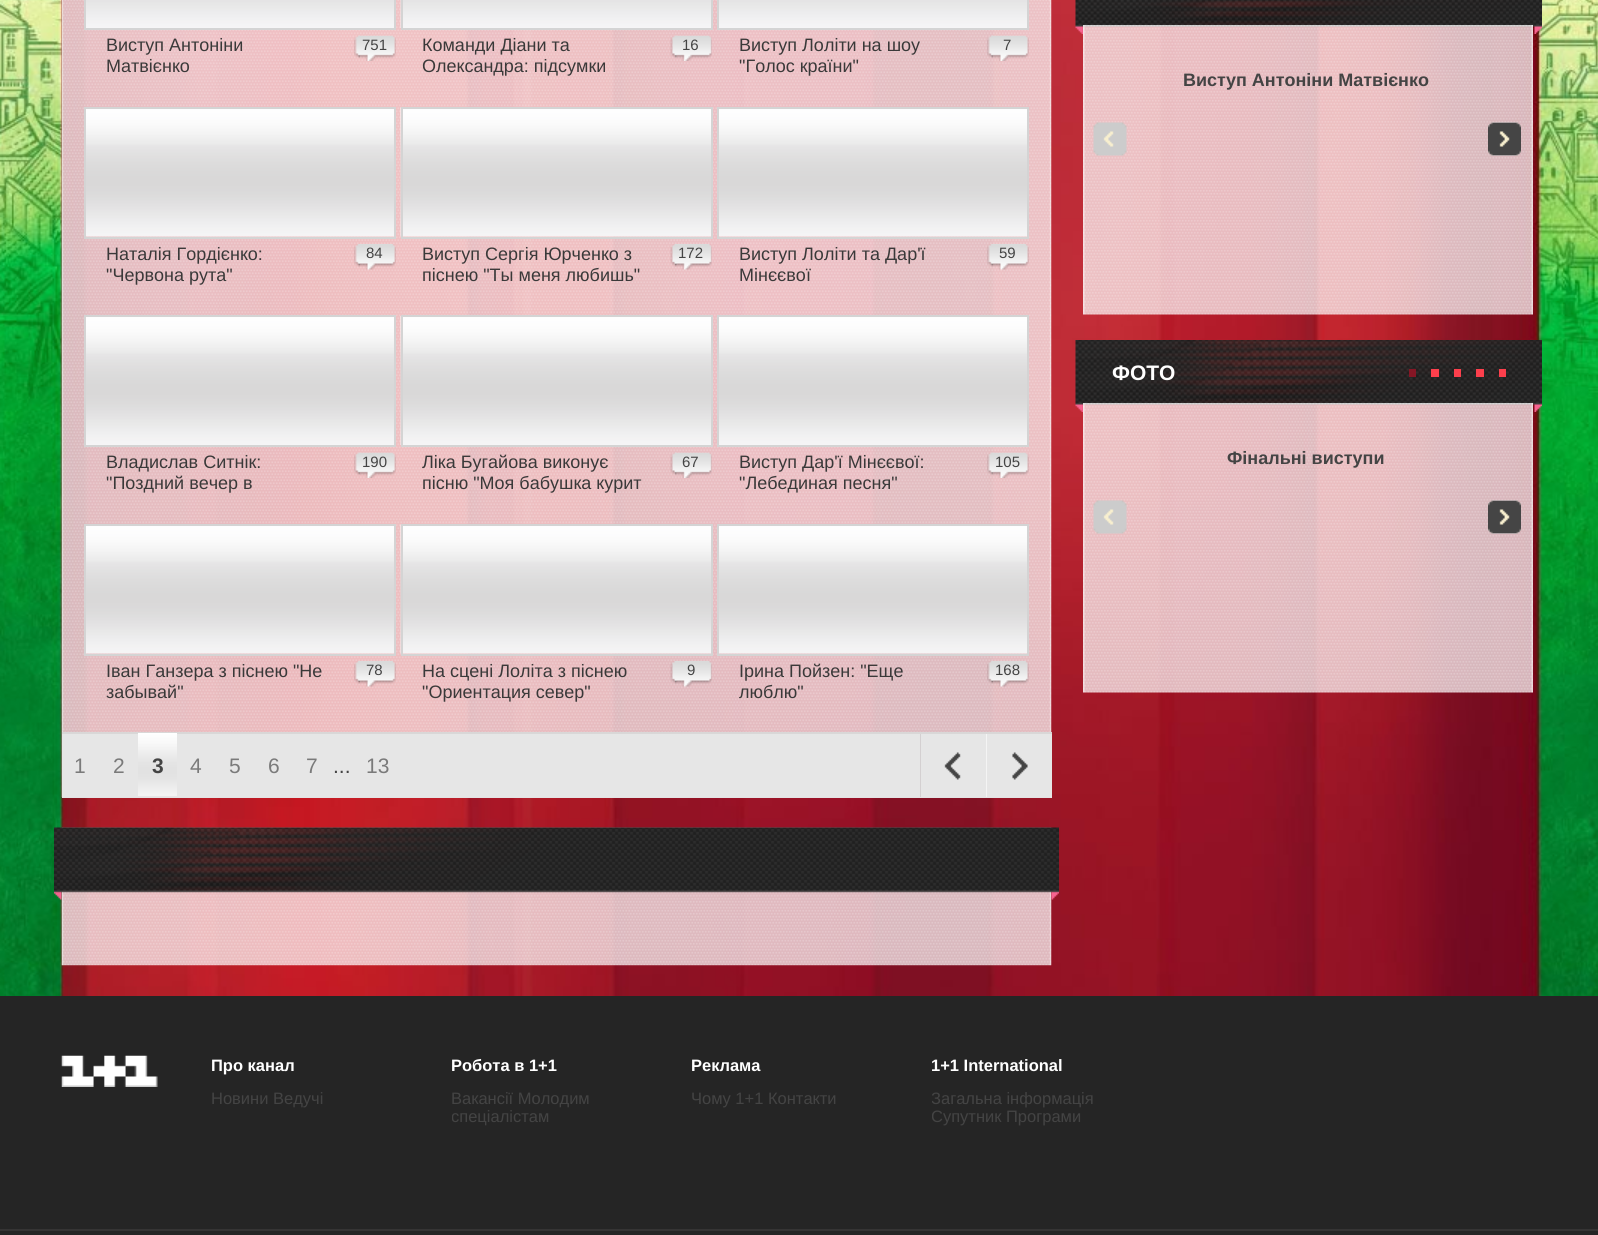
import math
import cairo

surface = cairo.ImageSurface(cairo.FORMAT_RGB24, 1598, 1235)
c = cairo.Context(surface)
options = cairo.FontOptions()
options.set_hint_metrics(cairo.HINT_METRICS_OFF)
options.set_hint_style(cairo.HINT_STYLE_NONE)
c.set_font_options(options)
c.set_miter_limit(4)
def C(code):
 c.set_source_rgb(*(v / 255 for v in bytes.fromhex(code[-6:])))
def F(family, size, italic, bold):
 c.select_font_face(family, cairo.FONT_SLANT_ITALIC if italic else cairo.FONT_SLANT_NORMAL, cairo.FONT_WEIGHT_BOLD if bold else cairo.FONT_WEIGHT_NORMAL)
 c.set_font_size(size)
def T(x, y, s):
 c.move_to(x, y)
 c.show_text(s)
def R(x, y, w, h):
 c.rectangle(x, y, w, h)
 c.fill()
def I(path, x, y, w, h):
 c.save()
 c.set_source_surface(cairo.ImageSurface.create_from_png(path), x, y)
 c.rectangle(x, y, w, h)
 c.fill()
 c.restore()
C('ffffff')
c.paint()
I('1.png',0,0,1598,996)
I('2.png',61,0,991,798)
C('d9d7d7')
R(62,732,990,2)
I('3.png',86,0,308,28)
c.rectangle(85,-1,310,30)
C('d4d4d4')
c.stroke()
F('Liberation Sans',18,0,0)
C('3a3939')
T(106,51,'Виступ Антоніни')
T(106,72,'Матвієнко')
I('4.png',354,35,6,23)
I('5.png',358,35,38,26)
F('Liberation Sans',15,0,0)
C('444444')
T(362,50,'751')
I('6.png',400,0,311,28)
c.rectangle(402,-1,310,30)
C('d4d4d4')
c.stroke()
F('Liberation Sans',18,0,0)
C('3a3939')
T(422,51,'Команди Діани та')
T(422,72,'Олександра: підсумки')
I('7.png',670,35,7,23)
I('8.png',675,35,37,26)
F('Liberation Sans',15,0,0)
C('444444')
T(682,50,'16')
I('3.png',719,0,308,28)
c.rectangle(718,-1,310,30)
C('d4d4d4')
c.stroke()
F('Liberation Sans',18,0,0)
C('3a3939')
T(739,51,'Виступ Лоліти на шоу')
T(739,72,'"Голос країни"')
I('9.png',987,35,6,23)
I('10.png',991,35,38,26)
F('Liberation Sans',15,0,0)
C('444444')
T(1003,50,'7')
I('11.png',86,109,308,128)
c.rectangle(85,108,310,130)
C('d4d4d4')
c.stroke()
F('Liberation Sans',18,0,0)
C('3a3939')
T(106,260,'Наталія Гордієнко:')
T(106,281,'"Червона рута"')
I('12.png',354,244,6,23)
I('13.png',358,244,38,26)
F('Liberation Sans',15,0,0)
C('444444')
T(366,258,'84')
I('14.png',400,107,311,130)
c.rectangle(402,108,310,130)
C('d4d4d4')
c.stroke()
F('Liberation Sans',18,0,0)
C('3a3939')
T(422,260,'Виступ Сергія Юрченко з')
T(422,281,'піснею "Ты меня любишь"')
I('15.png',670,244,7,23)
I('16.png',675,244,37,26)
F('Liberation Sans',15,0,0)
C('444444')
T(678,258,'172')
I('17.png',719,109,308,128)
c.rectangle(718,108,310,130)
C('d4d4d4')
c.stroke()
F('Liberation Sans',18,0,0)
C('3a3939')
T(739,260,'Виступ Лоліти та Дар\'ї')
T(739,281,'Мінєєвої')
I('18.png',987,244,6,23)
I('19.png',991,244,38,26)
F('Liberation Sans',15,0,0)
C('444444')
T(999,258,'59')
I('20.png',86,317,308,128)
c.rectangle(85,316,310,130)
C('d4d4d4')
c.stroke()
F('Liberation Sans',18,0,0)
C('3a3939')
T(106,468,'Владислав Ситнік:')
T(106,489,'"Поздний вечер в')
I('21.png',354,452,6,23)
I('22.png',358,452,38,26)
F('Liberation Sans',15,0,0)
C('444444')
T(362,467,'190')
I('23.png',400,316,311,129)
c.rectangle(402,316,310,130)
C('d4d4d4')
c.stroke()
F('Liberation Sans',18,0,0)
C('3a3939')
T(422,468,'Ліка Бугайова виконує')
T(422,489,'пісню "Моя бабушка курит')
I('24.png',670,452,7,23)
I('25.png',675,452,37,26)
F('Liberation Sans',15,0,0)
C('444444')
T(682,467,'67')
I('20.png',719,317,308,128)
c.rectangle(718,316,310,130)
C('d4d4d4')
c.stroke()
F('Liberation Sans',18,0,0)
C('3a3939')
T(739,468,'Виступ Дар\'ї Мінєєвої:')
T(739,489,'"Лебединая песня"')
I('26.png',987,452,6,23)
I('27.png',991,452,38,26)
F('Liberation Sans',15,0,0)
C('444444')
T(995,467,'105')
I('28.png',86,526,308,128)
c.rectangle(85,525,310,130)
C('d4d4d4')
c.stroke()
F('Liberation Sans',18,0,0)
C('3a3939')
T(106,677,'Іван Ганзера з піснею "Не')
T(106,698,'забывай"')
I('29.png',354,661,6,23)
I('30.png',358,661,38,26)
F('Liberation Sans',15,0,0)
C('444444')
T(366,675,'78')
I('31.png',400,524,311,130)
c.rectangle(402,525,310,130)
C('d4d4d4')
c.stroke()
F('Liberation Sans',18,0,0)
C('3a3939')
T(422,677,'На сцені Лоліта з піснею')
T(422,698,'"Ориентация север"')
I('32.png',670,661,7,23)
I('33.png',675,661,37,26)
F('Liberation Sans',15,0,0)
C('444444')
T(687,675,'9')
I('34.png',719,526,308,128)
c.rectangle(718,525,310,130)
C('d4d4d4')
c.stroke()
F('Liberation Sans',18,0,0)
C('3a3939')
T(739,677,'Ірина Пойзен: "Еще')
T(739,698,'люблю"')
I('35.png',987,661,6,23)
I('36.png',991,661,38,26)
F('Liberation Sans',15,0,0)
C('444444')
T(995,675,'168')
C('e6e6e6')
R(62,734,858,63)
C('e4e4e4')
R(62,797,990,1)
F('Liberation Sans',21,0,0)
C('7a7a7a')
T(74,773,'1')
T(113,773,'2')
I('37.png',138,733,39,63)
F('Liberation Sans',21,0,1)
C('444444')
T(152,773,'3')
F('Liberation Sans',21,0,0)
C('7a7a7a')
T(190,773,'4')
T(229,773,'5')
T(268,773,'6')
T(306,773,'7')
C('444444')
T(333,773,'...')
C('7a7a7a')
T(366,773,'13')
C('d4d0d1')
R(920,734,1,63)
C('e6e6e6')
R(921,734,65,63)
I('38.png',944,752,17,28)
C('f4f4f4')
R(986,734,1,63)
C('e6e6e6')
R(987,734,65,63)
I('39.png',1012,752,16,28)
I('40.png',61,827,991,139)
I('41.png',54,827,1005,73)
I('42.png',1075,0,467,34)
I('43.png',1083,25,450,290)
F('Liberation Sans',18,0,1)
C('444444')
T(1183,86,'Виступ Антоніни Матвієнко')
I('44.png',1093,122,34,34)
I('45.png',1488,122,33,34)
I('46.png',1488,122,33,34)
I('47.png',1075,340,467,72)
F('Liberation Sans',21,0,1)
C('ffffff')
T(1112,380,'ФОТО')
C('851625')
R(1409,369,7,8)
C('fc3f4c')
R(1431,369,8,8)
R(1454,369,7,8)
R(1476,369,8,8)
R(1499,369,7,8)
I('48.png',1083,403,450,290)
F('Liberation Sans',18,0,1)
C('444444')
T(1227,464,'Фінальні виступи')
I('49.png',1093,500,34,34)
I('50.png',1488,500,33,34)
I('51.png',1488,500,33,34)
C('252525')
R(0,996,1598,239)
C('353434')
R(0,1229,1598,2)
I('52.png',61,1055,97,32)
c.save()
c.rectangle(212,1056,240,53)
c.clip()
F('Liberation Sans',16.5,0,1)
C('ffffff')
T(211,1071,'Про канал')
c.restore()
F('Liberation Sans',16.5,0,0)
C('444444')
T(211,1104,'Новини Ведучі')
c.save()
c.rectangle(452,1056,240,71)
c.clip()
F('Liberation Sans',16.5,0,1)
C('ffffff')
T(451,1071,'Робота в 1+1')
c.restore()
T(451,1104,'Вакансії Молодим')
c.save()
c.rectangle(452,1056,240,71)
c.clip()
T(451,1122,'спеціалістам')
c.restore()
c.save()
c.rectangle(692,1056,240,53)
c.clip()
F('Liberation Sans',16.5,0,1)
C('ffffff')
T(691,1071,'Реклама')
c.restore()
T(691,1104,'Чому 1+1 Контакти')
c.save()
c.rectangle(932,1056,240,71)
c.clip()
F('Liberation Sans',16.5,0,1)
C('ffffff')
T(931,1071,'1+1 International')
F('Liberation Sans',16.5,0,0)
C('444444')
T(931,1104,'Загальна інформація')
T(931,1122,'Супутник')
c.restore()
T(1006,1122,'Програми')
surface.write_to_png('o.png')
